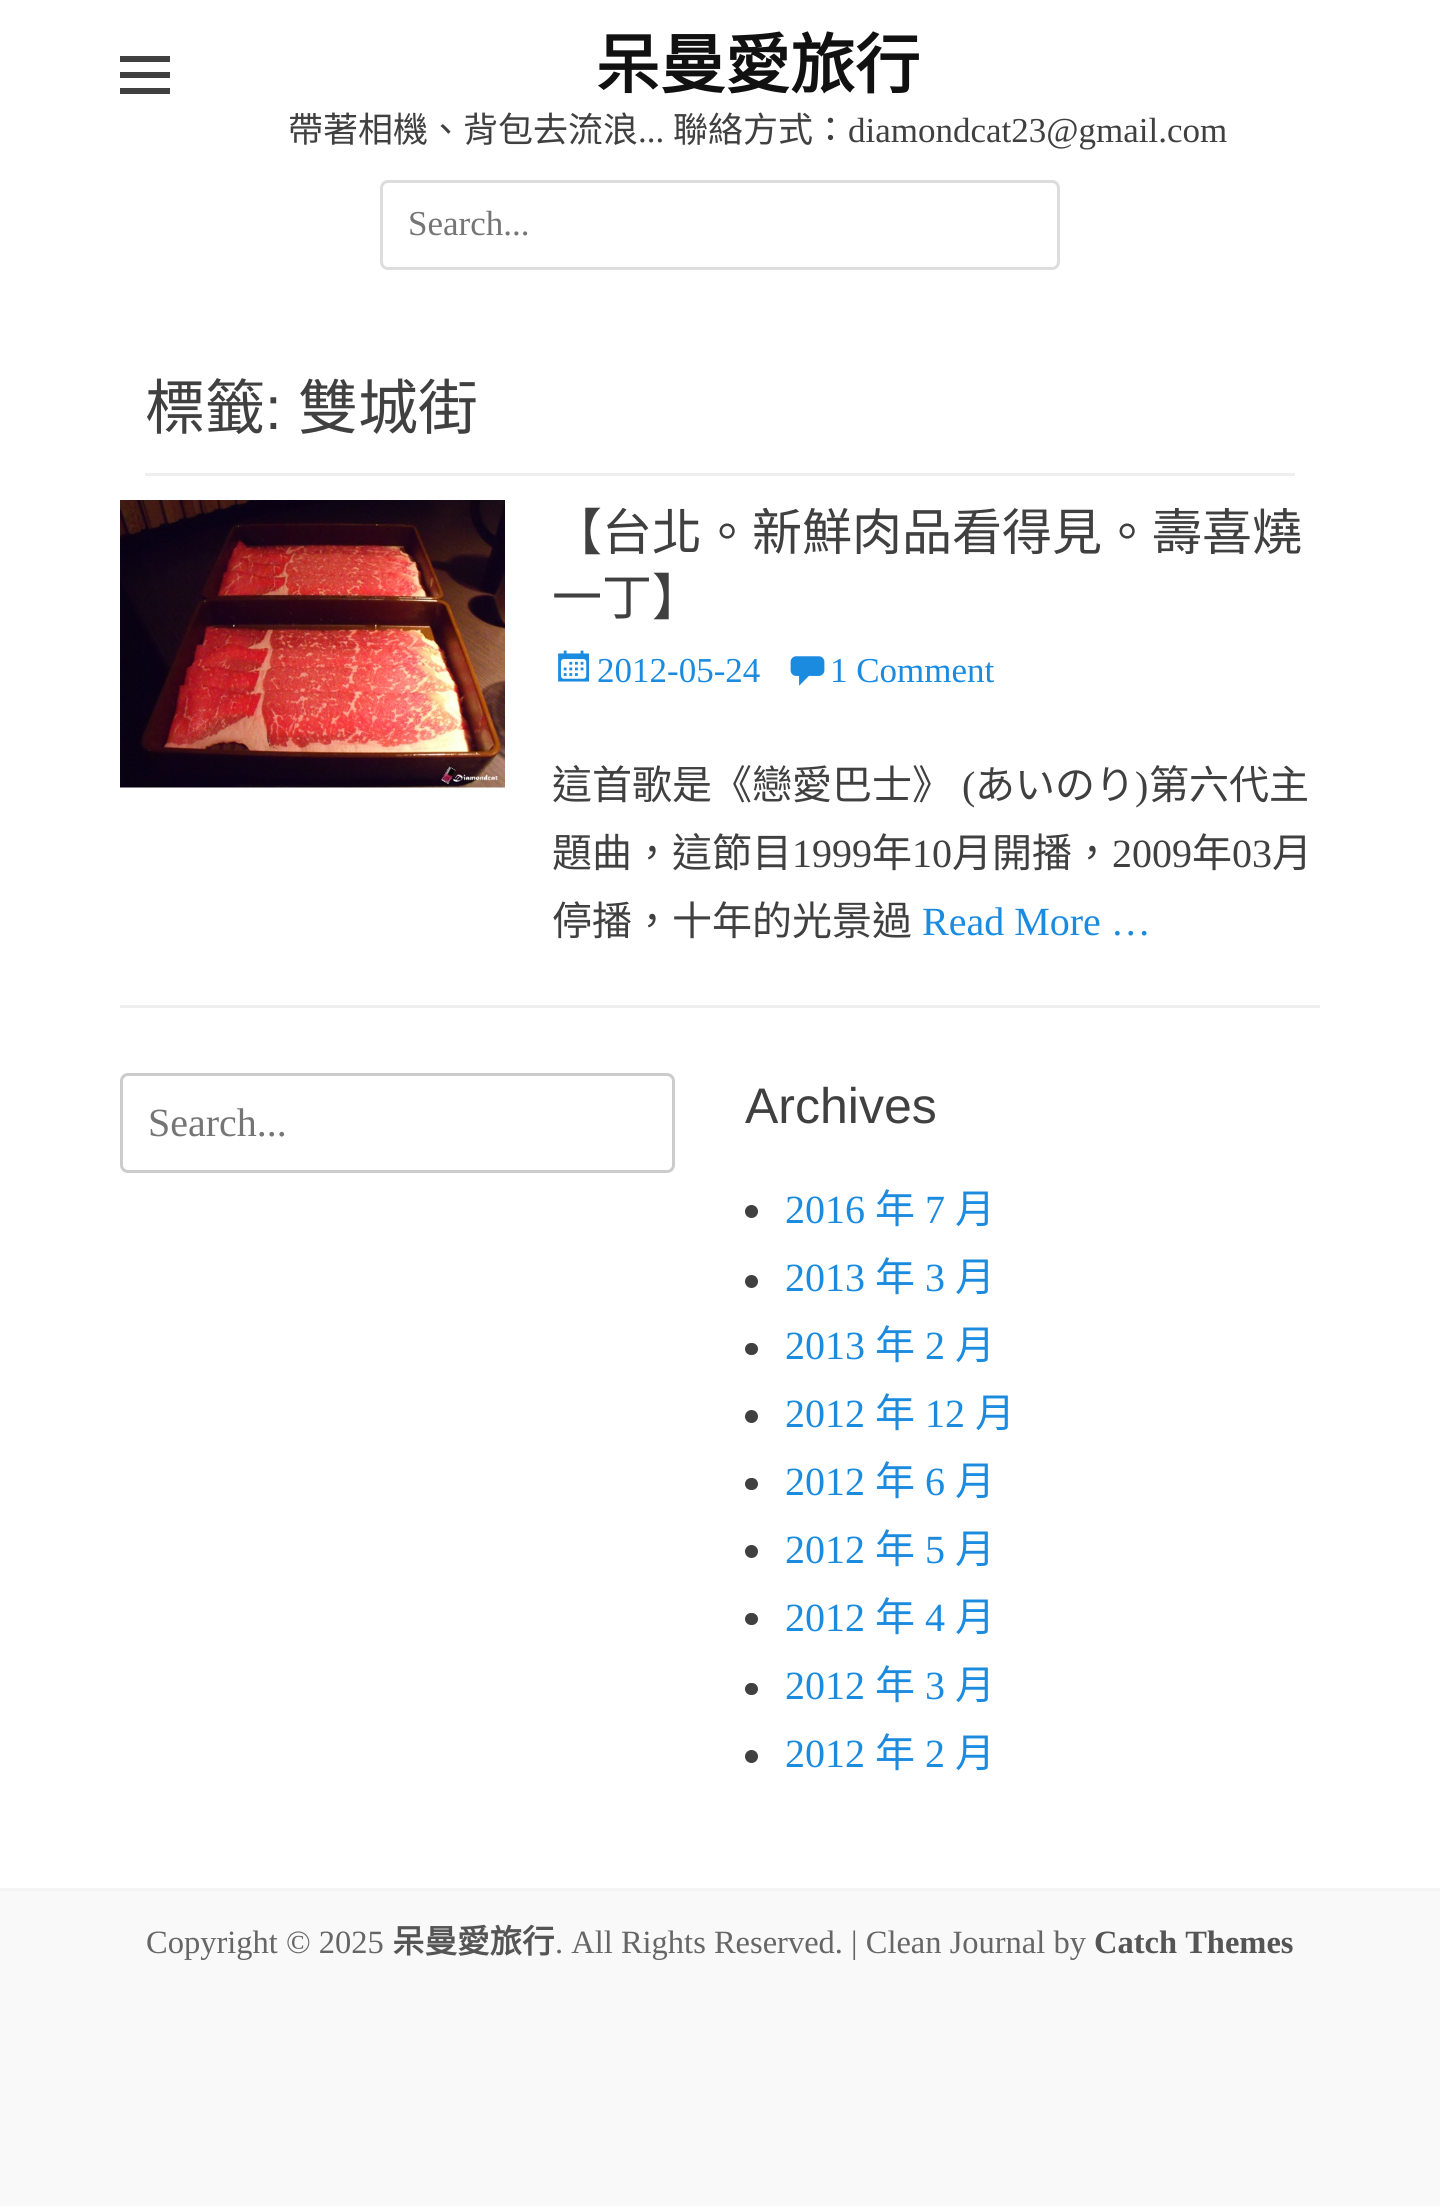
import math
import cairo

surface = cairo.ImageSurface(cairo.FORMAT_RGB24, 1440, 2206)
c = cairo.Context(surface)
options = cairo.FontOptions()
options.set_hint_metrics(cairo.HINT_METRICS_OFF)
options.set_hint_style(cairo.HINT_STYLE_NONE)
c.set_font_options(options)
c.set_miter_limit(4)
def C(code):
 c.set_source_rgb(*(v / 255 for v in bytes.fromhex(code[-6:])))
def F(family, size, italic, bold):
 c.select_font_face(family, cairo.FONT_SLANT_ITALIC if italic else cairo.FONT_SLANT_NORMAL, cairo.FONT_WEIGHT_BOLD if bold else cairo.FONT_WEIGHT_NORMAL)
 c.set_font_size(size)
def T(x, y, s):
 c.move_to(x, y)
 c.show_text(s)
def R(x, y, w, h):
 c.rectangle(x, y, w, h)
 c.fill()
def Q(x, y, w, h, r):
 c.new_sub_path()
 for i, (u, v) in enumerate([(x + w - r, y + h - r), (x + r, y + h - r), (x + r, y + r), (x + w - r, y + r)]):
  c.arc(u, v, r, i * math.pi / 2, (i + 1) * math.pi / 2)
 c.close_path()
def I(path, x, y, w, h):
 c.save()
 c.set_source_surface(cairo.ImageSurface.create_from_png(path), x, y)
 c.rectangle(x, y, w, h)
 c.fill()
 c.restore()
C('f9f9f9')
c.paint()
C('ffffff')
R(0,0,1440,1888)
C('404040')
c.new_path()
c.move_to(120,94)
c.line_to(120,88)
c.line_to(170,88)
c.line_to(170,94)
c.close_path()
c.move_to(120,56)
c.line_to(170,56)
c.line_to(170,62)
c.line_to(120,62)
c.close_path()
c.move_to(120,78)
c.line_to(120,72)
c.line_to(170,72)
c.line_to(170,78)
c.close_path()
c.fill()
F('Noto Sans CJK TC',65,0,1)
C('111111')
T(595,88,'呆曼愛旅行')
F('Noto Sans CJK TC',35,0,0)
C('404040')
T(288,142,'帶著相機、背包去流浪')
F('Liberation Serif',35,0,0)
T(638,142,'...')
F('Noto Sans CJK TC',35,0,0)
T(673,142,'聯絡方式：')
F('Liberation Serif',35,0,0)
T(848,142,'diamondcat23@gmail.com')
Q(381.5,181.5,677,87,6.5)
C('dddddd')
c.set_line_width(3)
c.stroke()
C('757575')
T(408,235,'Search...')
C('eeeeee')
R(145,473,1150,3)
F('Noto Sans CJK TC',60,0,0)
C('404040')
T(145,429,'標籤')
F('Liberation Sans',60,0,0)
T(265,429,':')
F('Noto Sans CJK TC',60,0,0)
T(298,429,'雙城街')
C('eeeeee')
R(120,1005,1200,3)
I('1.png',120,500,385,288)
F('Noto Sans CJK TC',50,0,0)
C('404040')
T(552,550,'【台北。新鮮肉品看得見。壽喜燒')
T(552,615,'一丁】')
I('2.png',558,650,32,32)
F('Liberation Serif',35,0,0)
C('1b8be0')
T(597,682,'2012-05-24')
I('3.png',790,656,35,30)
T(830,682,'1 Comment')
F('Noto Sans CJK TC',40,0,0)
C('404040')
T(552,799,'這首歌是《戀愛巴士》')
F('Liberation Serif',40,0,0)
T(962,799,'(')
F('Noto Sans CJK TC',40,0,0)
T(975,799,'あいのり')
F('Liberation Serif',40,0,0)
T(1135,799,')')
F('Noto Sans CJK TC',40,0,0)
T(1149,799,'第六代主')
T(552,867,'題曲，這節目')
F('Liberation Serif',40,0,0)
T(792,867,'1999')
F('Noto Sans CJK TC',40,0,0)
T(872,867,'年')
F('Liberation Serif',40,0,0)
T(912,867,'10')
F('Noto Sans CJK TC',40,0,0)
T(952,867,'月開播，')
F('Liberation Serif',40,0,0)
T(1112,867,'2009')
F('Noto Sans CJK TC',40,0,0)
T(1192,867,'年')
F('Liberation Serif',40,0,0)
T(1232,867,'03')
F('Noto Sans CJK TC',40,0,0)
T(1272,867,'月')
T(552,935,'停播，十年的光景過')
F('Liberation Serif',40,0,0)
C('1b8be0')
T(922,935,'Read More …')
Q(121.5,1074.5,552,97,6.5)
C('cccccc')
c.stroke()
C('757575')
T(148,1136,'Search...')
F('Liberation Sans',50,0,0)
C('404040')
T(745,1123,'Archives')
c.new_path()
c.arc(751.5,1211.5,6.5,0,2 * math.pi)
c.fill()
F('Liberation Serif',40,0,0)
C('1b8be0')
T(785,1223,'2016')
F('Noto Sans CJK TC',40,0,0)
T(875,1223,'年')
F('Liberation Serif',40,0,0)
T(925,1223,'7')
F('Noto Sans CJK TC',40,0,0)
T(955,1223,'月')
C('404040')
c.new_path()
c.arc(751.5,1281.5,6.5,0,2 * math.pi)
c.fill()
F('Liberation Serif',40,0,0)
C('1b8be0')
T(785,1291,'2013')
F('Noto Sans CJK TC',40,0,0)
T(875,1291,'年')
F('Liberation Serif',40,0,0)
T(925,1291,'3')
F('Noto Sans CJK TC',40,0,0)
T(955,1291,'月')
C('404040')
Q(745,1343,13,12,6)
c.fill()
F('Liberation Serif',40,0,0)
C('1b8be0')
T(785,1359,'2013')
F('Noto Sans CJK TC',40,0,0)
T(875,1359,'年')
F('Liberation Serif',40,0,0)
T(925,1359,'2')
F('Noto Sans CJK TC',40,0,0)
T(955,1359,'月')
C('404040')
c.new_path()
c.arc(751.5,1416.5,6.5,0,2 * math.pi)
c.fill()
F('Liberation Serif',40,0,0)
C('1b8be0')
T(785,1427,'2012')
F('Noto Sans CJK TC',40,0,0)
T(875,1427,'年')
F('Liberation Serif',40,0,0)
T(925,1427,'12')
F('Noto Sans CJK TC',40,0,0)
T(975,1427,'月')
C('404040')
Q(745,1478,13,12,6)
c.fill()
F('Liberation Serif',40,0,0)
C('1b8be0')
T(785,1495,'2012')
F('Noto Sans CJK TC',40,0,0)
T(875,1495,'年')
F('Liberation Serif',40,0,0)
T(925,1495,'6')
F('Noto Sans CJK TC',40,0,0)
T(955,1495,'月')
C('404040')
c.new_path()
c.arc(751.5,1551.5,6.5,0,2 * math.pi)
c.fill()
F('Liberation Serif',40,0,0)
C('1b8be0')
T(785,1563,'2012')
F('Noto Sans CJK TC',40,0,0)
T(875,1563,'年')
F('Liberation Serif',40,0,0)
T(925,1563,'5')
F('Noto Sans CJK TC',40,0,0)
T(955,1563,'月')
C('404040')
Q(745,1613,13,12,6)
c.fill()
F('Liberation Serif',40,0,0)
C('1b8be0')
T(785,1631,'2012')
F('Noto Sans CJK TC',40,0,0)
T(875,1631,'年')
F('Liberation Serif',40,0,0)
T(925,1631,'4')
F('Noto Sans CJK TC',40,0,0)
T(955,1631,'月')
C('404040')
Q(745,1683,13,12,6)
c.fill()
F('Liberation Serif',40,0,0)
C('1b8be0')
T(785,1699,'2012')
F('Noto Sans CJK TC',40,0,0)
T(875,1699,'年')
F('Liberation Serif',40,0,0)
T(925,1699,'3')
F('Noto Sans CJK TC',40,0,0)
T(955,1699,'月')
C('404040')
c.new_path()
c.arc(751.5,1756.5,6.5,0,2 * math.pi)
c.fill()
F('Liberation Serif',40,0,0)
C('1b8be0')
T(785,1767,'2012')
F('Noto Sans CJK TC',40,0,0)
T(875,1767,'年')
F('Liberation Serif',40,0,0)
T(925,1767,'2')
F('Noto Sans CJK TC',40,0,0)
T(955,1767,'月')
C('f4f4f4')
R(0,1888,1440,3)
F('Liberation Serif',32.5,0,0)
C('666666')
T(146,1953,'Copyright © 2025')
F('Noto Sans CJK TC',32.5,0,1)
C('555555')
T(392,1953,'呆曼愛旅行')
F('Liberation Serif',32.5,0,0)
C('666666')
T(555,1953,'. All Rights Reserved. | Clean Journal by')
F('Liberation Serif',32.5,0,1)
C('555555')
T(1094,1953,'Catch Themes')
surface.write_to_png('o.png')
